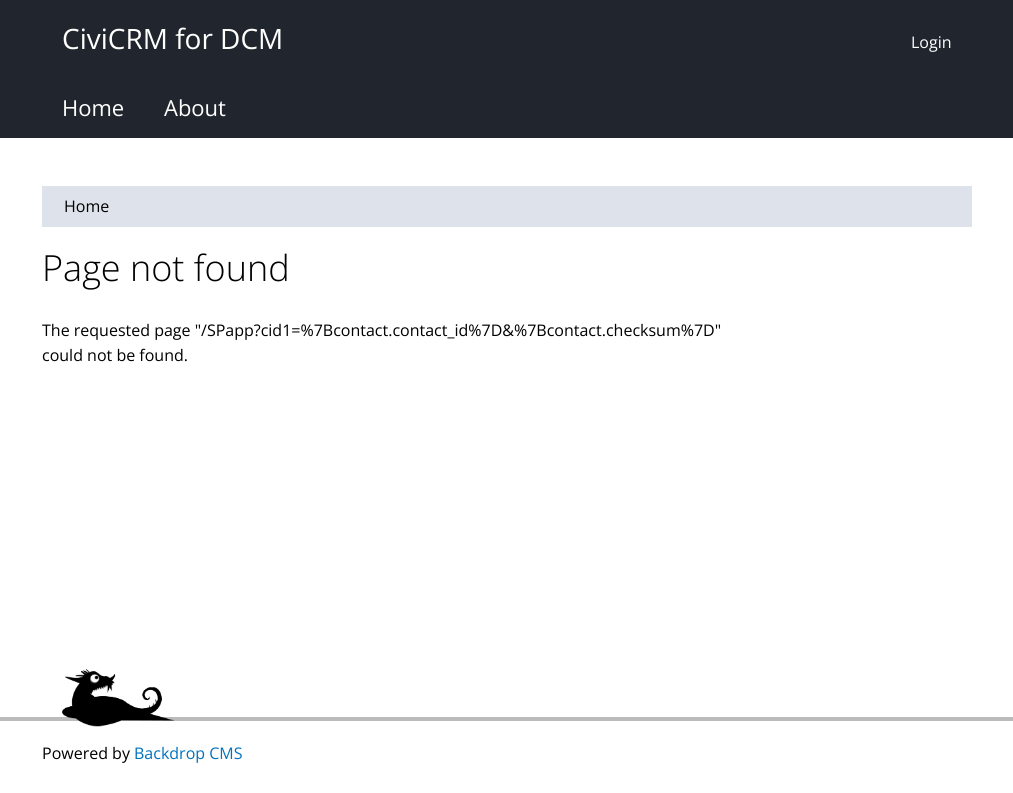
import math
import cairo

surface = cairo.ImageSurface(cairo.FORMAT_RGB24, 1013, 793)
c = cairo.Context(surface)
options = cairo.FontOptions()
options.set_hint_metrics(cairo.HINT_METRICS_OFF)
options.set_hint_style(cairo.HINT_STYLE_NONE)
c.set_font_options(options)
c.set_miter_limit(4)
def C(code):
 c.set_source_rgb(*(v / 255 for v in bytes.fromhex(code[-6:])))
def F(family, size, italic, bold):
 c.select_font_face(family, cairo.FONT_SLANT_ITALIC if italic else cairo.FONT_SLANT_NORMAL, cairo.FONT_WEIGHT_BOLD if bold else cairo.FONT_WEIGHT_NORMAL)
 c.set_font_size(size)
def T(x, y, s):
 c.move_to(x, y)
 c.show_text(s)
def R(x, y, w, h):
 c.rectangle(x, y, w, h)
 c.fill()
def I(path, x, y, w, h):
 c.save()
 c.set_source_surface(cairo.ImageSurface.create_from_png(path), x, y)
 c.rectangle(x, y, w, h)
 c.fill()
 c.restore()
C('ffffff')
c.paint()
C('20252e')
R(0,0,1013,138)
F('Open Sans',28,0,0)
C('fffffe')
T(62,49,'CiviCRM for DCM')
F('Open Sans',16,0,0)
T(911,48,'Login')
F('Open Sans',22,0,0)
T(62,116,'Home')
T(164,116,'About')
C('dee2ea')
R(42,186,930,41)
F('Open Sans',16,0,0)
C('000001')
T(64,212,'Home')
F('Open Sans Light',36,0,0)
T(42,281,'Page not found')
F('Open Sans',16,0,0)
T(42,336,'The requested page "/SPapp?cid1=%7Bcontact.contact_id%7D&%7Bcontact.checksum%7D"')
T(42,361,'could not be found.')
C('bbbbbc')
R(0,717,1013,4)
I('1.png',62,669,112,58)
C('000001')
T(42,759,'Powered by')
C('0073bd')
T(134,759,'Backdrop CMS')
surface.write_to_png('o.png')
